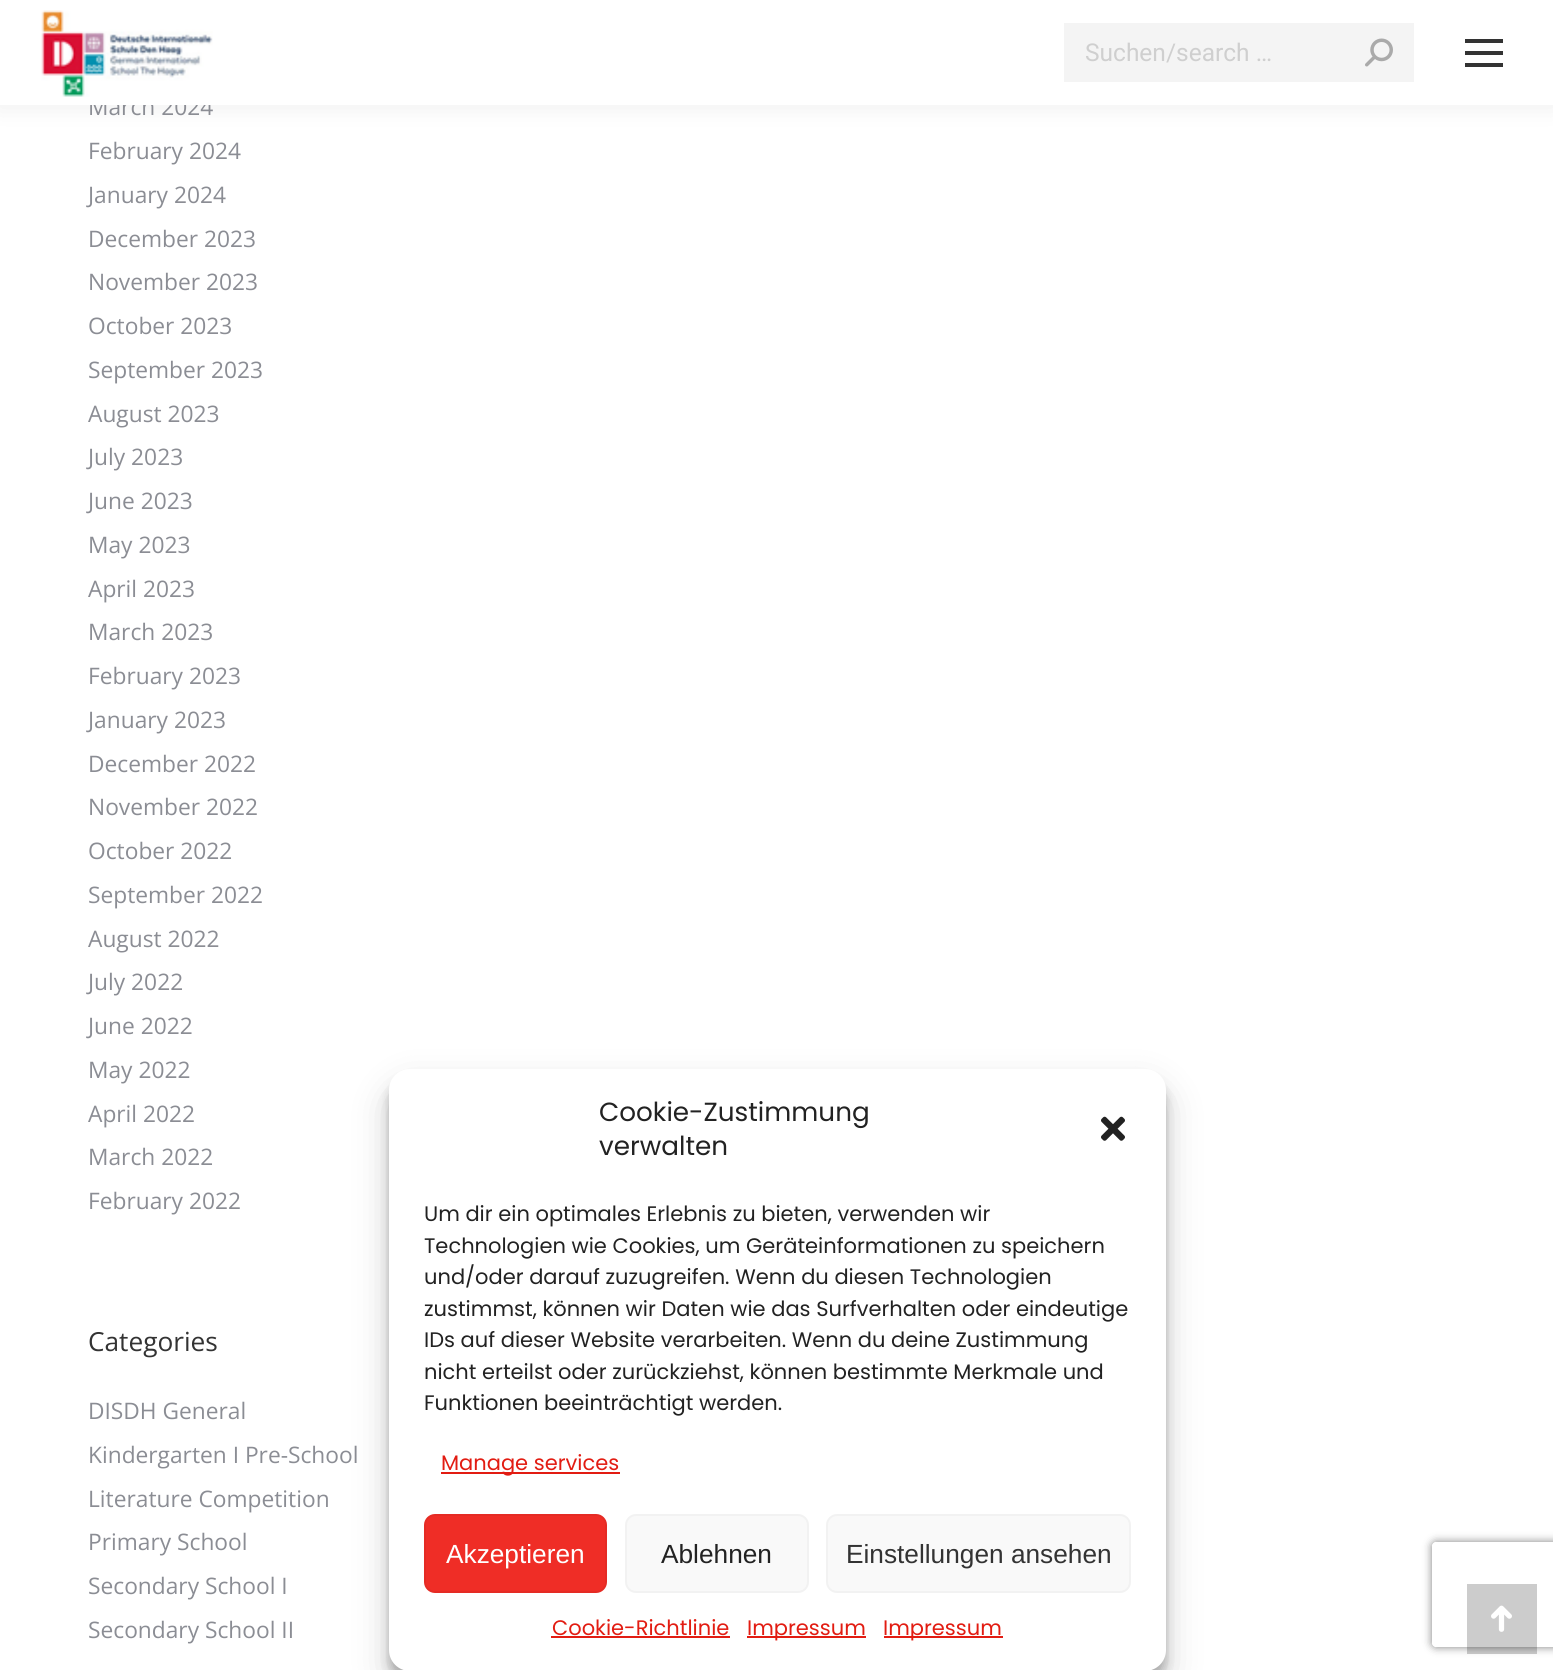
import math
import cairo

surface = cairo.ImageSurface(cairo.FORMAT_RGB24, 1553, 1670)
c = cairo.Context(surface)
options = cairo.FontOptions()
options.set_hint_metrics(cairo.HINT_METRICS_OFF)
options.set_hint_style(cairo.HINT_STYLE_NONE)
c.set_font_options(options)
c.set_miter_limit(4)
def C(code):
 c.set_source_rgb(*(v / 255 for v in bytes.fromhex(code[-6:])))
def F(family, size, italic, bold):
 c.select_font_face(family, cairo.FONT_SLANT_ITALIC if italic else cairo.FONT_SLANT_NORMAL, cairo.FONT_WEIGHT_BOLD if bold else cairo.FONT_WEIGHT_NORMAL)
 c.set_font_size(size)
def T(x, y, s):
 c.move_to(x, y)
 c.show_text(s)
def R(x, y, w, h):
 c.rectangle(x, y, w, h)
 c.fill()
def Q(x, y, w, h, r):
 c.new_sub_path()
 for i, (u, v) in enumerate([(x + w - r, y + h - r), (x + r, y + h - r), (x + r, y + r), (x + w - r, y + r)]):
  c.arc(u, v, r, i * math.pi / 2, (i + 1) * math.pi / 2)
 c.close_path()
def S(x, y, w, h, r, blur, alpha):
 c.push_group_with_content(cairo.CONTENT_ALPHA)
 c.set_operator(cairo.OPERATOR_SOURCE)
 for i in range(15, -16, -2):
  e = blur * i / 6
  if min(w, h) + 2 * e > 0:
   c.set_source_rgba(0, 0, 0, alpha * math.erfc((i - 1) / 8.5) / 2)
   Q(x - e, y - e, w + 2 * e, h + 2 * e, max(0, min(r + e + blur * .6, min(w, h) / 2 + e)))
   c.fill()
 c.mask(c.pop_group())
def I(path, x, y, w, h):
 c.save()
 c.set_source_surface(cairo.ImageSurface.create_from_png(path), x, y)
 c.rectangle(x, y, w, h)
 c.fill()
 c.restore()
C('ffffff')
c.paint()
C('000000')
S(-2,-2,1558,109,0,13,.07)
F('Open Sans',22.75,0,0)
C('8b8d94')
T(88,115,'March 2024')
C('ffffff')
R(0,0,1553,105)
I('1.png',41,10,172,87)
C('f4f4f4')
R(1064,23,350,59)
F('Roboto',24.5,0,0)
C('cfcfcf')
T(1085,61,'Suchen/search …')
I('2.png',1365,38,28,29)
C('333333')
R(1465,39,38,4)
R(1465,51,38,4)
R(1465,63,38,4)
F('Open Sans',22.75,0,0)
C('8b8d94')
T(88,159,'February 2024')
T(88,203,'January 2024')
T(88,247,'December 2023')
T(88,290,'November 2023')
T(88,334,'October 2023')
T(88,378,'September 2023')
T(88,422,'August 2023')
T(88,465,'July 2023')
T(88,509,'June 2023')
T(88,553,'May 2023')
T(88,597,'April 2023')
T(88,640,'March 2023')
T(88,684,'February 2023')
T(88,728,'January 2023')
T(88,772,'December 2022')
T(88,815,'November 2022')
T(88,859,'October 2022')
T(88,903,'September 2022')
T(88,947,'August 2022')
T(88,990,'July 2022')
T(88,1034,'June 2022')
T(88,1078,'May 2022')
T(88,1122,'April 2022')
T(88,1165,'March 2022')
T(88,1209,'February 2022')
F('Open Sans',26.25,0,0)
C('333333')
T(88,1351,'Categories')
F('Open Sans',22.75,0,0)
C('8b8d94')
T(88,1419,'DISDH General')
T(88,1463,'Kindergarten I Pre-School')
T(88,1507,'Literature Competition')
T(88,1550,'Primary School')
T(88,1594,'Secondary School I')
T(88,1638,'Secondary School II')
c.save()
c.set_fill_rule(cairo.FILL_RULE_EVEN_ODD)
c.new_path()
c.move_to(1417,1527)
c.line_to(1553,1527)
c.line_to(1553,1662)
c.line_to(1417,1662)
c.close_path()
c.move_to(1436,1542)
c.line_to(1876,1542)
c.curve_to(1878,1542,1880,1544,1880,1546)
c.line_to(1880,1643)
c.curve_to(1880,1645,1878,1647,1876,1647)
c.line_to(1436,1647)
c.curve_to(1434,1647,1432,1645,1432,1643)
c.line_to(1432,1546)
c.curve_to(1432,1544,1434,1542,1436,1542)
c.close_path()
c.clip()
C('808080')
S(1432,1542,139,105,4,4.5,1)
c.restore()
c.set_source_rgba(0,0,0,0.2)
R(1467,1584,70,70)
I('3.png',1491,1605,21,27)
C('000000')
S(389,1080,777,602,21,5,.23)
S(389,1087,777,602,21,17.5,.19)
C('ffffff')
Q(389,1069,777,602,21)
c.fill()
F('Poppins',26.25,0,0)
C('222222')
T(599,1121,'Cookie-Zustimmung')
T(599,1155,'verwalten')
I('4.png',1101,1116,24,25)
F('Poppins',21,0,0)
T(424,1221,'Um dir ein optimales Erlebnis zu bieten, verwenden wir')
T(424,1253,'Technologien wie Cookies, um Geräteinformationen zu speichern')
T(424,1284,'und/oder darauf zuzugreifen. Wenn du diesen Technologien')
T(424,1316,'zustimmst, können wir Daten wie das Surfverhalten oder eindeutige')
T(424,1347,'IDs auf dieser Website verarbeiten. Wenn du deine Zustimmung')
T(424,1379,'nicht erteilst oder zurückziehst, können bestimmte Merkmale und')
T(424,1410,'Funktionen beeinträchtigt werden.')
C('e21c12')
R(441,1472,179,2)
T(441,1470,'Manage services')
C('ef2d26')
Q(425,1515,181,77,10)
c.fill_preserve()
C('e52b24')
c.stroke()
F('Liberation Sans',26.25,0,0)
C('ffffff')
T(446,1563,'Akzeptieren')
C('f9f9f9')
Q(626,1515,182,77,10)
c.fill_preserve()
C('f2f2f2')
c.stroke()
C('222222')
T(661,1563,'Ablehnen')
C('f9f9f9')
Q(827,1515,303,77,10)
c.fill_preserve()
C('f2f2f2')
c.stroke()
C('333333')
T(846,1563,'Einstellungen ansehen')
F('Poppins',21,0,0)
C('e21c12')
T(552,1635,'Cookie-Richtlinie')
R(551,1636,179,2)
R(747,1636,119,2)
T(747,1635,'Impressum')
R(884,1636,119,2)
T(883,1635,'Impressum')
surface.write_to_png('o.png')
